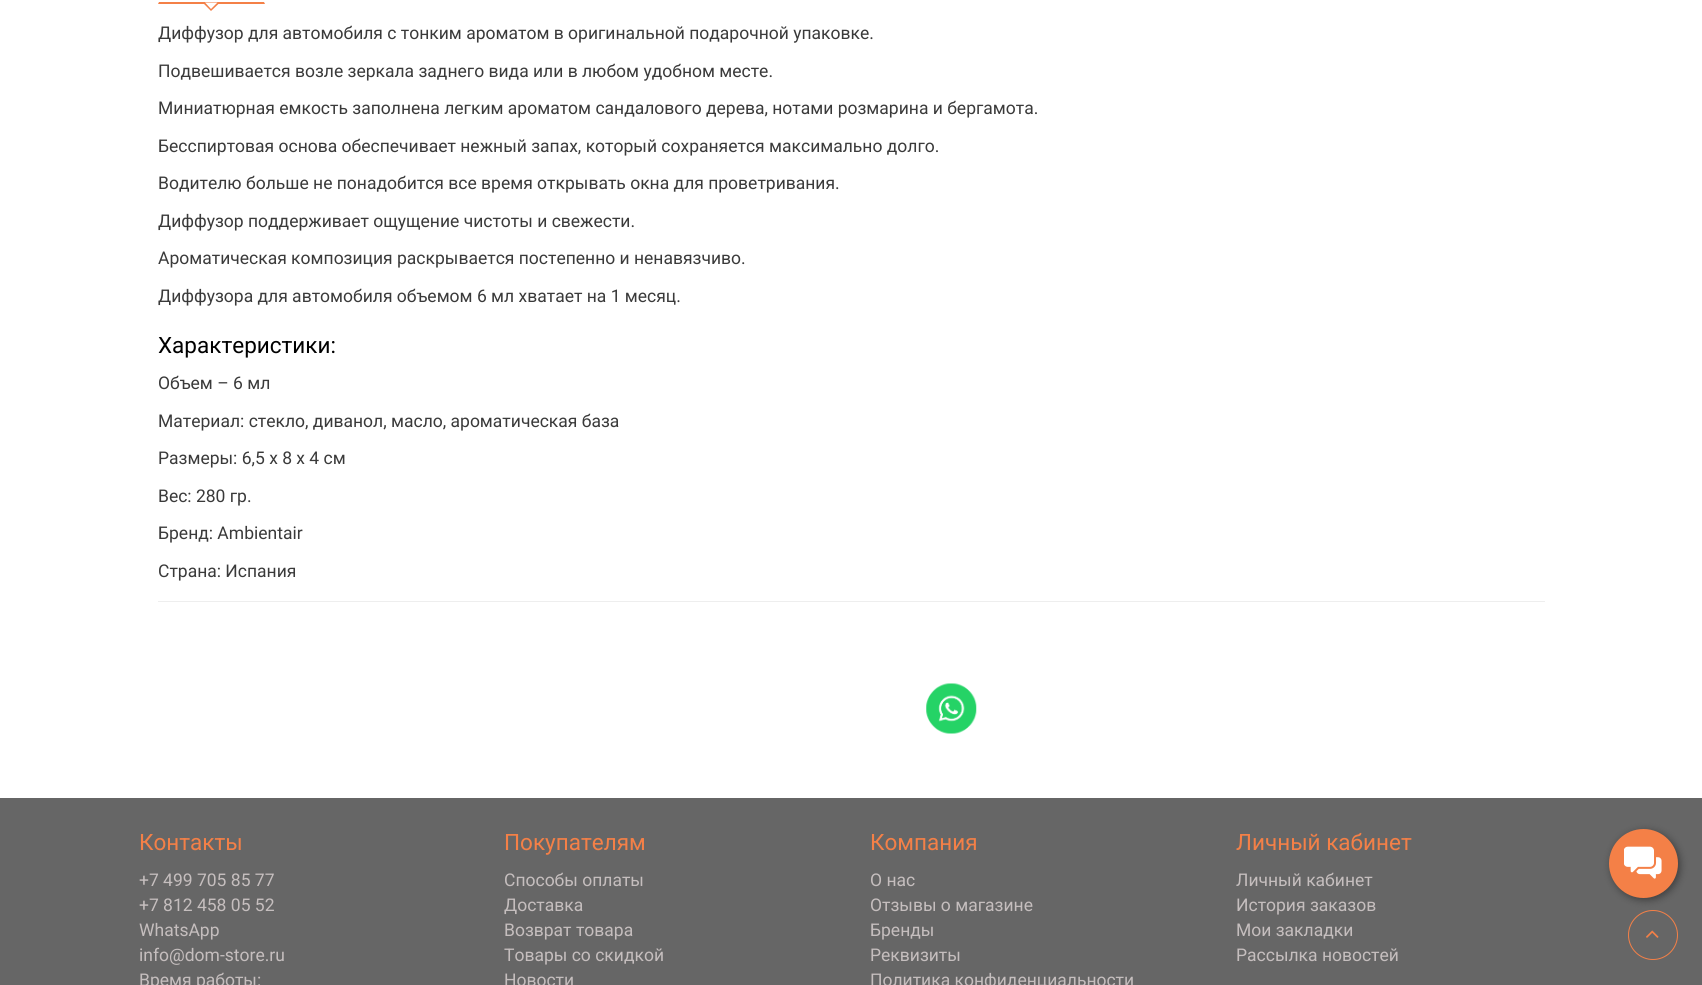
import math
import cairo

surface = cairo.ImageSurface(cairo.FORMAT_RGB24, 1702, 985)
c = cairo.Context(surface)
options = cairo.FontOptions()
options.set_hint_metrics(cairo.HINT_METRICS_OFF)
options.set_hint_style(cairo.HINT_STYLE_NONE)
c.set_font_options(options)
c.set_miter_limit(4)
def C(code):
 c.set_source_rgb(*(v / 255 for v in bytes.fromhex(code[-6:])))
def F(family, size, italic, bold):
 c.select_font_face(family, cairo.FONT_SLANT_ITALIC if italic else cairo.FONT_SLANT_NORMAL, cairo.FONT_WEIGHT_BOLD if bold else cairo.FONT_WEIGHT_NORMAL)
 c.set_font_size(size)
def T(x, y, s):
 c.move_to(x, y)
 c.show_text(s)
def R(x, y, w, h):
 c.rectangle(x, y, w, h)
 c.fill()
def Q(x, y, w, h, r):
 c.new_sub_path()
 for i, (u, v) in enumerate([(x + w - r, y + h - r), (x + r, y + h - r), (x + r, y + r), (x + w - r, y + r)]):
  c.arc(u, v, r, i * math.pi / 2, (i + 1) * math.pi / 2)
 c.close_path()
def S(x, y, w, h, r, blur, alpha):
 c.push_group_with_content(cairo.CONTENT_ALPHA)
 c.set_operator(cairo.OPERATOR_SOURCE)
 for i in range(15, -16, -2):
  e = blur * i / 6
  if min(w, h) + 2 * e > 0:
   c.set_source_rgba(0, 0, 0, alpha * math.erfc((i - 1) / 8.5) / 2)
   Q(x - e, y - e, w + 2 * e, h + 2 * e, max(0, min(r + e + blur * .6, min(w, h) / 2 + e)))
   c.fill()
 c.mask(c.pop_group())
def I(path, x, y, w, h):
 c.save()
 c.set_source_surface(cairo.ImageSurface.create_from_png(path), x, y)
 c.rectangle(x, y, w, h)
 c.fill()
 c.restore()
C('ffffff')
c.paint()
C('f48047')
c.new_path()
c.move_to(265,4)
c.line_to(158,4)
c.line_to(159,2)
c.line_to(264,2)
c.close_path()
c.fill()
c.new_path()
c.move_to(202.5,2.5)
c.line_to(220,2.5)
c.line_to(211,11)
c.close_path()
c.fill()
C('ffffff')
c.new_path()
c.move_to(205,2.5)
c.line_to(217.5,2.5)
c.line_to(211,9)
c.close_path()
c.fill()
F('Roboto',17.5,0,0)
C('3a3a3a')
T(158,39,'Диффузор для автомобиля с тонким ароматом в оригинальной подарочной упаковке.')
T(158,77,'Подвешивается возле зеркала заднего вида или в любом удобном месте.')
T(158,114,'Миниатюрная емкость заполнена легким ароматом сандалового дерева, нотами розмарина и бергамота.')
T(158,152,'Бесспиртовая основа обеспечивает нежный запах, который сохраняется максимально долго.')
T(158,189,'Водителю больше не понадобится все время открывать окна для проветривания.')
T(158,227,'Диффузор поддерживает ощущение чистоты и свежести.')
T(158,264,'Ароматическая композиция раскрывается постепенно и ненавязчиво.')
T(158,302,'Диффузора для автомобиля объемом 6 мл хватает на 1 месяц.')
F('Roboto',22.5,0,0)
C('000000')
T(158,353,'Характеристики:')
F('Roboto',17.5,0,0)
C('3a3a3a')
T(158,389,'Объем – 6 мл')
T(158,427,'Материал: стекло, диванол, масло, ароматическая база')
T(158,464,'Размеры: 6,5 х 8 х 4 см')
T(158,502,'Вес: 280 гр.')
T(158,539,'Бренд: Ambientair')
T(158,577,'Страна: Испания')
C('eeeeee')
R(158,601,1387,1)
I('1.png',926,683,51,51)
C('666666')
R(0,798,1702,187)
F('Roboto',22.5,0,0)
C('f48047')
T(139,850,'Контакты')
F('Roboto',17.5,0,0)
C('c5bebe')
T(139,886,'+7 499 705 85 77')
T(139,911,'+7 812 458 05 52')
T(139,936,'WhatsApp')
T(139,961,'info@dom-store.ru')
T(139,986,'Время работы:')
F('Roboto',22.5,0,0)
C('f48047')
T(504,850,'Покупателям')
F('Roboto',17.5,0,0)
C('c5bebe')
T(504,886,'Способы оплаты')
T(504,911,'Доставка')
T(504,936,'Возврат товара')
T(504,961,'Товары со скидкой')
T(504,986,'Новости')
F('Roboto',22.5,0,0)
C('f48047')
T(870,850,'Компания')
F('Roboto',17.5,0,0)
C('c5bebe')
T(870,886,'О нас')
T(870,911,'Отзывы о магазине')
T(870,936,'Бренды')
T(870,961,'Реквизиты')
T(870,986,'Политика конфиденциальности')
F('Roboto',22.5,0,0)
C('f48047')
T(1236,850,'Личный кабинет')
F('Roboto',17.5,0,0)
C('c5bebe')
T(1236,886,'Личный кабинет')
T(1236,911,'История заказов')
T(1236,936,'Мои закладки')
T(1236,961,'Рассылка новостей')
c.new_path()
c.arc(1653,935,24.5,0,2 * math.pi)
C('f48047')
c.set_line_width(1)
c.stroke()
C('000000')
S(1611,831,69,69,34.5,4,.4)
C('f48047')
c.arc(1643.5,863.5,34.5,0,2 * math.pi)
c.fill()
I('2.png',1624,846,38,33)
I('3.png',1646,930,13,8)
surface.write_to_png('o.png')
